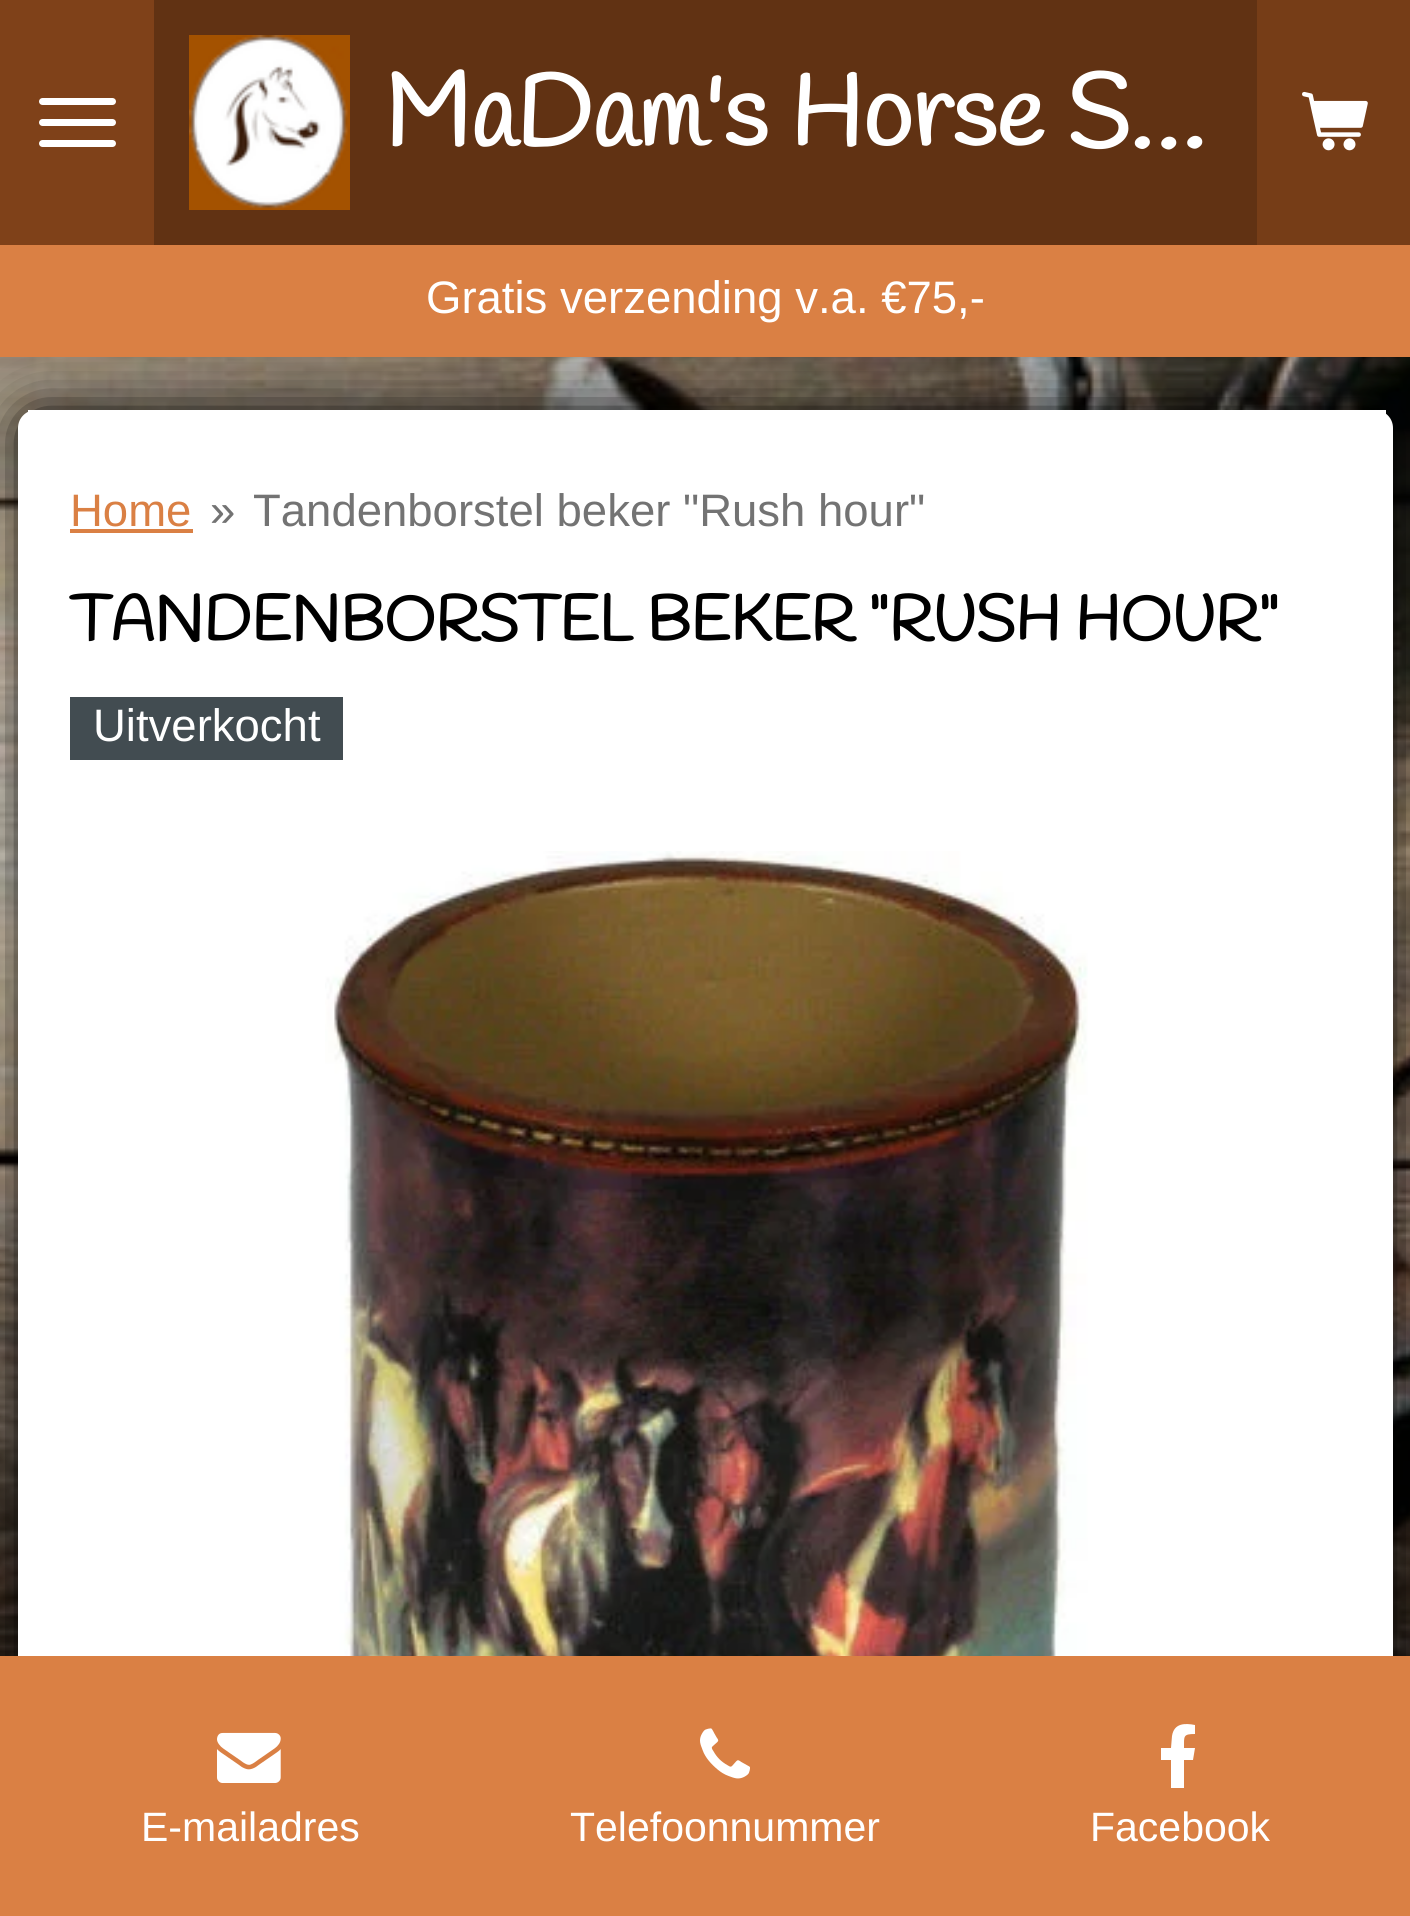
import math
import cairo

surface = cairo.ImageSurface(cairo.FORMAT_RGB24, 1410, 1916)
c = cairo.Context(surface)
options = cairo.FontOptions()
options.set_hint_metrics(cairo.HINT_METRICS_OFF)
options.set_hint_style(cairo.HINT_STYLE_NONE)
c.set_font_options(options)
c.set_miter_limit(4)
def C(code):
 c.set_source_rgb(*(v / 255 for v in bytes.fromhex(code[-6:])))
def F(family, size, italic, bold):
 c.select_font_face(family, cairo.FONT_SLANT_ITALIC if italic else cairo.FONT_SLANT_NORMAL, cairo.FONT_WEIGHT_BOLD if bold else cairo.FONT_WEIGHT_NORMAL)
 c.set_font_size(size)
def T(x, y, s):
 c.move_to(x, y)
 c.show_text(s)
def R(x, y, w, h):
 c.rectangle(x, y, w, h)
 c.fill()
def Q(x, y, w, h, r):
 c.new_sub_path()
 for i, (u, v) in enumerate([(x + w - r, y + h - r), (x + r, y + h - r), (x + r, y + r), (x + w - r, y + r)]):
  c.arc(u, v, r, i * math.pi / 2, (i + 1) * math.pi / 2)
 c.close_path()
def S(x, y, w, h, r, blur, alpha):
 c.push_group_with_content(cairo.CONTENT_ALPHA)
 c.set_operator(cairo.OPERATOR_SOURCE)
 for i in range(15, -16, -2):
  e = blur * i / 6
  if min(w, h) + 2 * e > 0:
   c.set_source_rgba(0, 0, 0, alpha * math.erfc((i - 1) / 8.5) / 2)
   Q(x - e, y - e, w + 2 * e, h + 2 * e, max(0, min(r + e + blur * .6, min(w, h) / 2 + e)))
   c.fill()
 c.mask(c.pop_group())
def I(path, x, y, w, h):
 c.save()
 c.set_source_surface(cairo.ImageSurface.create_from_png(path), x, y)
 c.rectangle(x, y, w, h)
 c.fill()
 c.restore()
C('ffffff')
c.paint()
C('7f4119')
R(0,0,154,245)
C('ffffff')
Q(39,119,77,7,3.5)
c.fill()
Q(39,98,77,7,3.5)
c.fill()
Q(39,140,77,7,3.5)
c.fill()
C('613213')
R(154,0,1103,245)
I('1.png',189,35,161,175)
F('Handlee',100.75,0,1)
C('ffffff')
T(384,146,'MaDam\'s Horse S…')
C('763d17')
R(1257,0,153,245)
I('2.png',1302,91,66,60)
I('6.png',0,357,1410,1299)
C('000000')
S(18,410,1375,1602,18,26,1)
C('da8044')
R(0,245,1410,112)
F('Liberation Sans',45.5,0,0)
C('ffffff')
T(426,313,'Gratis verzending v.a. €75,-')
Q(18,410,1375,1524,18)
c.fill()
R(28,410,1358,4)
C('da8044')
T(70,526,'Home')
R(70,529,123,4)
C('737373')
T(210,526,'»')
T(253,526,'Tandenborstel beker "Rush hour"')
F('Handlee',63,0,1)
C('000000')
T(70,640,'TANDENBORSTEL BEKER "RUSH HOUR"')
C('424c51')
R(70,697,273,63)
F('Liberation Sans',45.5,0,0)
C('ffffff')
T(93,741,'Uitverkocht')
I('3.png',325,851,763,805)
C('da8044')
R(0,1656,1410,260)
I('4.png',217,1732,64,51)
F('Liberation Sans',41,0,0)
C('ffffff')
T(141,1841,'E-mailadres')
I('5.png',700,1728,50,51)
T(570,1841,'Telefoonnummer')
c.new_path()
c.move_to(1193,1760)
c.line_to(1195,1748)
c.line_to(1184,1748)
c.curve_to(1184,1736,1183,1734,1195,1734)
c.line_to(1195,1725)
c.curve_to(1185,1723,1174,1723,1172,1736)
c.line_to(1171,1748)
c.line_to(1161,1748)
c.line_to(1161,1760)
c.line_to(1171,1760)
c.line_to(1171,1788)
c.line_to(1184,1788)
c.line_to(1184,1760)
c.close_path()
c.fill()
T(1090,1841,'Facebook')
surface.write_to_png('o.png')
